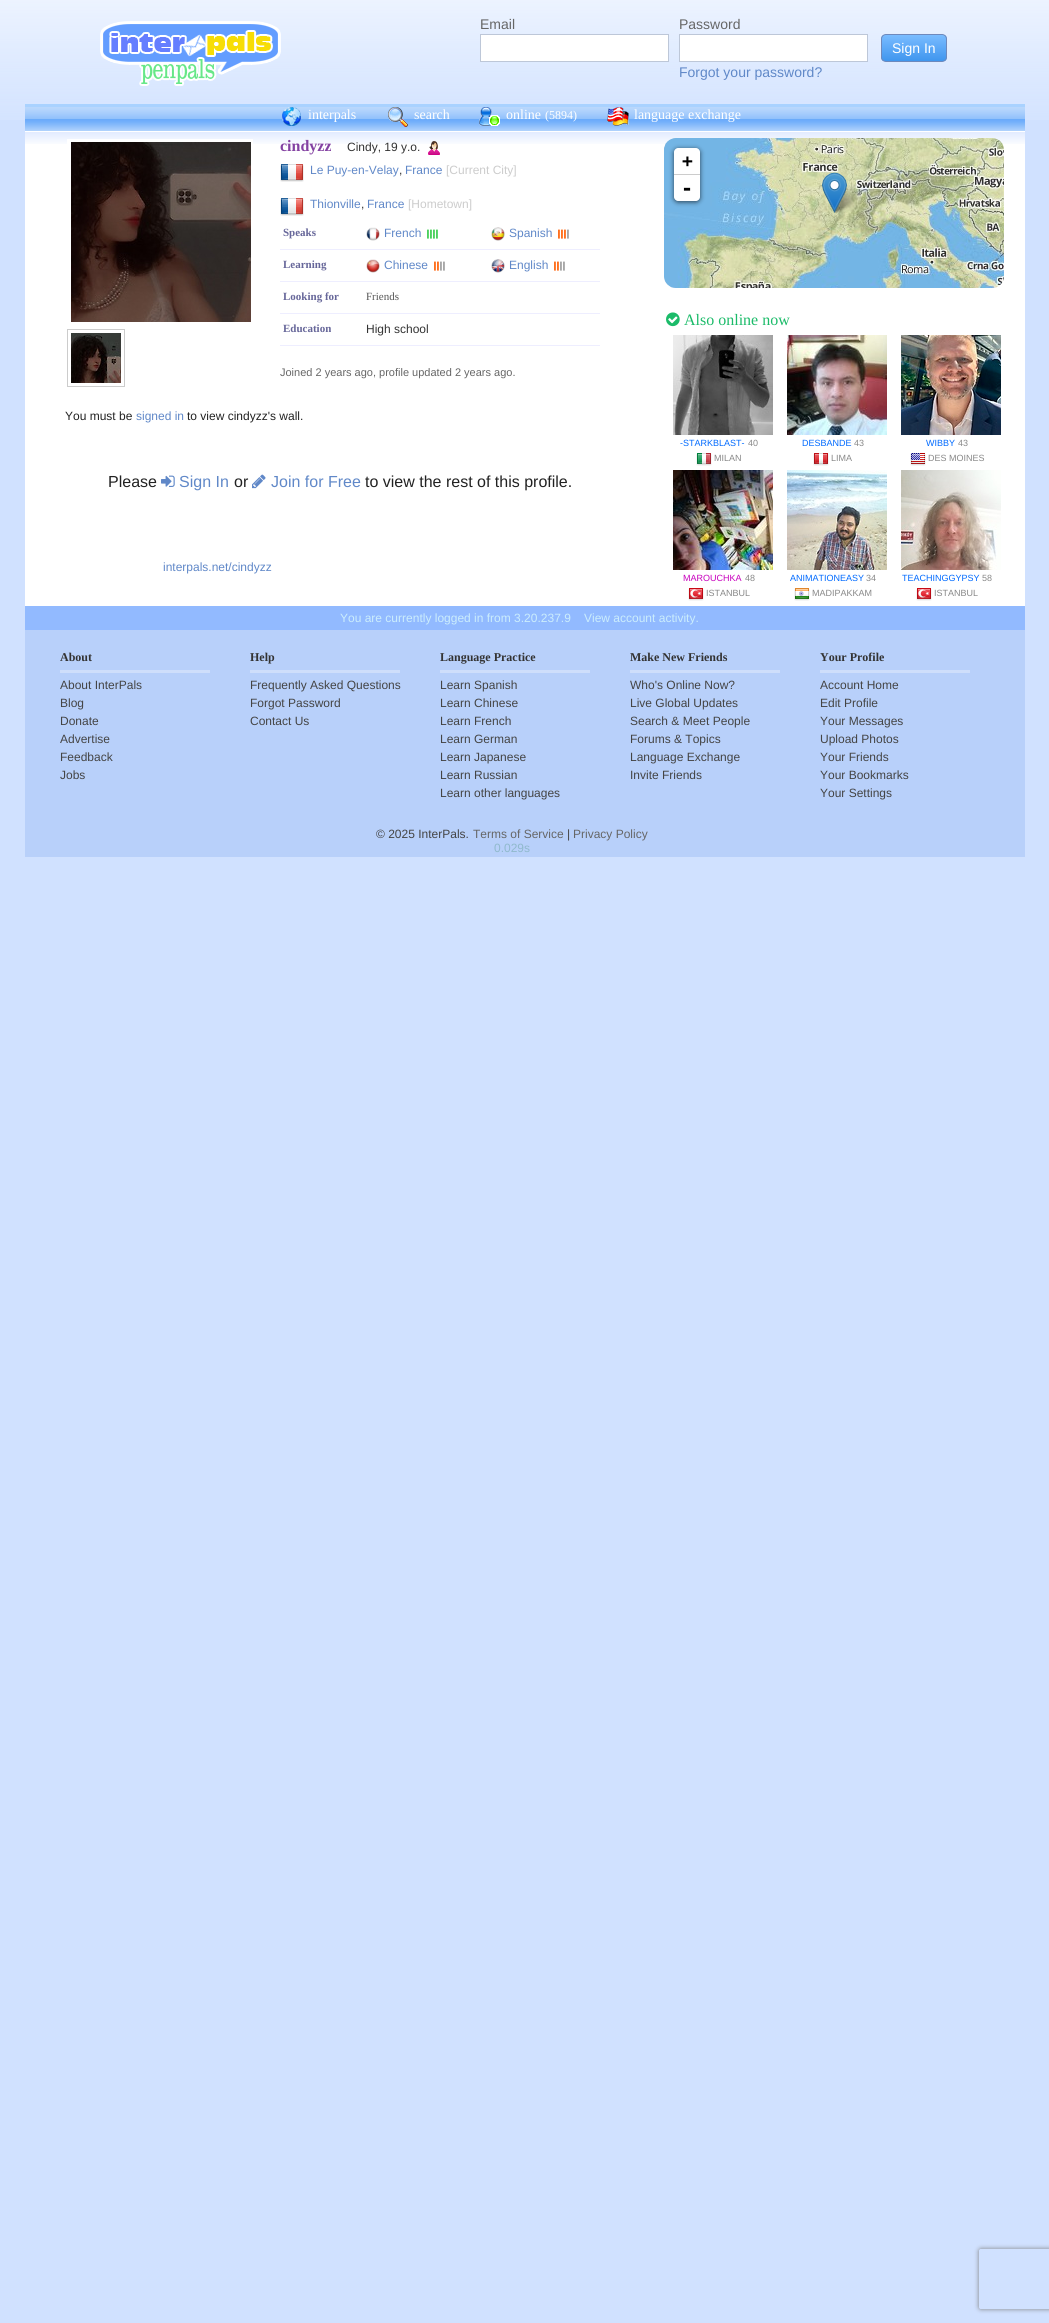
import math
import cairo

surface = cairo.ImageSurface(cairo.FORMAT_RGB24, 1049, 2323)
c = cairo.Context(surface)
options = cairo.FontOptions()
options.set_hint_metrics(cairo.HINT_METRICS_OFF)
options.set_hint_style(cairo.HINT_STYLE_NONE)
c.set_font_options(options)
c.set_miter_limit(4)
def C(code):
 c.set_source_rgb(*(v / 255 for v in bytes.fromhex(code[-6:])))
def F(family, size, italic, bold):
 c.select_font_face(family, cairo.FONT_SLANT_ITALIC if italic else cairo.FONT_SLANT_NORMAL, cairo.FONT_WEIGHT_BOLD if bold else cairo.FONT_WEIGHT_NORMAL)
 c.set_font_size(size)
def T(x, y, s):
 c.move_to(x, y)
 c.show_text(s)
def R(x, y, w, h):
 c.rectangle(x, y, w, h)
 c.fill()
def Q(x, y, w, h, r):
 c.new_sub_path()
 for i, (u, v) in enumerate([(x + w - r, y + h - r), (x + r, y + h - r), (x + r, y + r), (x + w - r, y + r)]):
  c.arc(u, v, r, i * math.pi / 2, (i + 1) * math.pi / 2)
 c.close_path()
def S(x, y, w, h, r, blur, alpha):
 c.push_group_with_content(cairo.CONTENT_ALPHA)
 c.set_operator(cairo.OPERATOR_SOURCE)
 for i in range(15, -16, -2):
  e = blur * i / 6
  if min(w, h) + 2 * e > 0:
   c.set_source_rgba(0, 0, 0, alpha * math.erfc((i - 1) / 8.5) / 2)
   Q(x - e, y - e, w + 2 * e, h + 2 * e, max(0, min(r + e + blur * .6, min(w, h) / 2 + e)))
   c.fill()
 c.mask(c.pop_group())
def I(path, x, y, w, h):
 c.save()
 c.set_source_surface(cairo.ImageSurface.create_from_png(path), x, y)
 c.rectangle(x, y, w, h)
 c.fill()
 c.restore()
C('d0e1ff')
c.paint()
I('1.png',0,0,1049,120)
I('2.png',100,21,181,65)
F('Liberation Sans',14,0,0)
C('666666')
T(480,29,'Email')
C('ffffff')
c.rectangle(480.5,34.5,188,27)
c.fill_preserve()
C('bdc7d8')
c.set_line_width(1)
c.stroke()
C('666666')
T(679,29,'Password')
C('ffffff')
c.rectangle(679.5,34.5,188,27)
c.fill_preserve()
C('bdc7d8')
c.stroke()
C('6088c8')
T(679,77,'Forgot your password?')
c.save()
Q(881,34,66,28,5)
c.clip()
gradient = cairo.LinearGradient(914,35,914,61)
gradient.add_color_stop_rgba(0,0.478,0.737,1,1)
gradient.add_color_stop_rgba(.44,0.376,0.671,0.973,1)
gradient.add_color_stop_rgba(1,0.251,0.588,0.933,1)
c.set_source(gradient)
R(881,35,66,26)
c.restore()
Q(881.5,34.5,65,27,4.5)
C('6e89bc')
c.stroke()
C('ffffff')
T(892,53,'Sign In')
C('a9d2ff')
R(25,104,1000,3)
I('3.png',25,107,1000,24)
C('ffffff')
R(25,131,1000,1)
I('4.png',282,107,19,19)
F('Liberation Serif',14,0,0)
T(308,119,'interpals')
I('5.png',388,107,20,20)
T(414,119,'search')
I('6.png',479,107,21,19)
T(506,119,'online')
F('Liberation Serif',12,0,0)
T(545,119,'(5894)')
I('7.png',607,107,22,19)
F('Liberation Serif',14,0,0)
T(634,119,'language exchange')
R(25,144,1000,462)
I('8.png',25,132,1000,12)
R(67,139,186,5)
I('9.png',71,142,180,180)
c.rectangle(67.5,329.5,57,57)
C('cccccc')
c.stroke()
I('10.png',71,333,50,50)
F('Liberation Serif',16,0,1)
C('8442a2')
T(280,151,'cindyzz')
F('Liberation Sans',12,0,0)
C('333333')
T(347,151,'Cindy, 19 y.o.')
I('11.png',428,141,12,14)
I('12.png',280,164,24,18)
C('6088c8')
T(310,174,'Le Puy-en-Velay')
C('333333')
T(399,174,',')
C('6088c8')
T(405,174,'France')
C('cccccc')
T(446,174,'[Current City]')
I('12.png',280,198,24,18)
C('6088c8')
T(310,208,'Thionville')
C('333333')
T(361,208,',')
C('6088c8')
T(367,208,'France')
C('cccccc')
T(408,208,'[Hometown]')
C('eeeeff')
R(280,249,320,1)
F('Liberation Serif',11,0,1)
C('666699')
T(283,236,'Speaks')
I('13.png',366,227,14,14)
F('Liberation Sans',12,0,0)
C('6088c8')
T(384,237,'French')
I('14.png',427,229,11,10)
I('15.png',491,227,14,14)
T(509,237,'Spanish')
I('16.png',558,229,11,10)
C('eeeeff')
R(280,281,320,1)
F('Liberation Serif',11,0,1)
C('666699')
T(283,268,'Learning')
I('17.png',366,259,14,14)
F('Liberation Sans',12,0,0)
C('6088c8')
T(384,269,'Chinese')
I('18.png',434,261,11,10)
I('19.png',491,259,14,14)
T(509,269,'English')
I('18.png',554,261,11,10)
C('eeeeff')
R(280,313,320,1)
F('Liberation Serif',11,0,1)
C('666699')
T(283,300,'Looking for')
F('Liberation Serif',11,0,0)
C('555555')
T(366,300,'Friends')
C('eeeeff')
R(280,345,320,1)
F('Liberation Serif',11,0,1)
C('666699')
T(283,332,'Education')
F('Liberation Sans',12,0,0)
C('333333')
T(366,333,'High school')
F('Liberation Sans',11,0,0)
C('666666')
T(280,376,'Joined 2 years ago, profile updated 2 years ago.')
F('Liberation Sans',12,0,0)
C('222222')
T(65,420,'You must be')
C('6088c8')
T(136,420,'signed in')
C('222222')
T(187,420,'to view cindyzz\'s wall.')
F('Liberation Sans',16,0,0)
T(108,487,'Please')
I('20.png',161,475,14,12)
C('6088c8')
T(179,487,'Sign In')
C('222222')
T(234,487,'or')
I('21.png',252,474,14,15)
C('6088c8')
T(271,487,'Join for Free')
C('222222')
T(365,487,'to view the rest of this profile.')
F('Liberation Sans',12,0,0)
C('6088c8')
T(163,571,'interpals.net/cindyzz')
I('22.png',664,138,340,150)
I('23.png',664,138,126,138)
I('24.png',790,138,214,138)
I('25.png',664,276,126,12)
I('26.png',790,276,214,12)
I('28.png',832,185,29,28)
I('27.png',822,172,25,41)
C('000000')
S(674,149,26,53,4,2.5,.65)
C('ffffff')
c.new_path()
c.move_to(678,148)
c.line_to(696,148)
c.curve_to(698,148,700,150,700,152)
c.line_to(700,175)
c.line_to(674,175)
c.line_to(674,152)
c.curve_to(674,150,676,148,678,148)
c.close_path()
c.fill()
C('cccccc')
R(674,174,26,1)
F('DejaVu Sans Mono',18,0,1)
C('000000')
T(682,167,'+')
C('ffffff')
c.new_path()
c.move_to(674,175)
c.line_to(700,175)
c.line_to(700,197)
c.curve_to(700,199,698,201,696,201)
c.line_to(678,201)
c.curve_to(676,201,674,199,674,197)
c.close_path()
c.fill()
F('DejaVu Sans Mono',20,0,1)
C('000000')
T(681,195,'-')
I('29.png',666,312,14,15)
F('Liberation Serif',16,0,0)
C('1bbb69')
T(684,325,'Also online now')
I('30.png',673,335,100,100)
F('Liberation Sans',9,0,0)
C('006aff')
T(680,446,'-STARKBLAST-')
C('888888')
T(748,446,'40')
I('31.png',696,453,16,13)
T(714,461,'MILAN')
I('32.png',787,335,100,100)
C('006aff')
T(802,446,'DESBANDE')
C('888888')
T(854,446,'43')
I('33.png',813,453,16,13)
T(831,461,'LIMA')
I('34.png',901,335,100,100)
C('006aff')
T(926,446,'WIBBY')
C('888888')
T(958,446,'43')
I('35.png',910,453,16,13)
T(928,461,'DES MOINES')
I('36.png',673,470,100,100)
C('c800bd')
T(683,581,'MAROUCHKA')
C('888888')
T(745,581,'48')
I('37.png',688,588,16,13)
T(706,596,'ISTANBUL')
I('38.png',787,470,100,100)
C('006aff')
T(790,581,'ANIMATIONEASY')
C('888888')
T(866,581,'34')
I('39.png',794,588,16,13)
T(812,596,'MADIPAKKAM')
I('40.png',901,470,100,100)
C('006aff')
T(902,581,'TEACHINGGYPSY')
C('888888')
T(982,581,'58')
I('37.png',916,588,16,13)
T(934,596,'ISTANBUL')
C('92baff')
R(25,606,1000,24)
F('Liberation Sans',12,0,0)
C('cbedfc')
T(340,622,'You are currently logged in from 3.20.237.9')
T(584,622,'View account activity.')
C('b8d0fa')
R(25,630,1000,227)
C('cedefb')
R(60,670,150,3)
F('Liberation Serif',12,0,1)
C('333333')
T(60,661,'About')
F('Liberation Sans',12,0,0)
C('444444')
T(60,689,'About InterPals')
T(60,707,'Blog')
T(60,725,'Donate')
T(60,743,'Advertise')
T(60,761,'Feedback')
T(60,779,'Jobs')
C('cedefb')
R(250,670,150,3)
F('Liberation Serif',12,0,1)
C('333333')
T(250,661,'Help')
F('Liberation Sans',12,0,0)
C('444444')
T(250,689,'Frequently Asked Questions')
T(250,707,'Forgot Password')
T(250,725,'Contact Us')
C('cedefb')
R(440,670,150,3)
F('Liberation Serif',12,0,1)
C('333333')
T(440,661,'Language Practice')
F('Liberation Sans',12,0,0)
C('444444')
T(440,689,'Learn Spanish')
T(440,707,'Learn Chinese')
T(440,725,'Learn French')
T(440,743,'Learn German')
T(440,761,'Learn Japanese')
T(440,779,'Learn Russian')
T(440,797,'Learn other languages')
C('cedefb')
R(630,670,150,3)
F('Liberation Serif',12,0,1)
C('333333')
T(630,661,'Make New Friends')
F('Liberation Sans',12,0,0)
C('444444')
T(630,689,'Who\'s Online Now?')
T(630,707,'Live Global Updates')
T(630,725,'Search & Meet People')
T(630,743,'Forums & Topics')
T(630,761,'Language Exchange')
T(630,779,'Invite Friends')
C('cedefb')
R(820,670,150,3)
F('Liberation Serif',12,0,1)
C('333333')
T(820,661,'Your Profile')
F('Liberation Sans',12,0,0)
C('444444')
T(820,689,'Account Home')
T(820,707,'Edit Profile')
T(820,725,'Your Messages')
T(820,743,'Upload Photos')
T(820,761,'Your Friends')
T(820,779,'Your Bookmarks')
T(820,797,'Your Settings')
T(376,838,'© 2025 InterPals.')
C('666666')
T(473,838,'Terms of Service')
C('444444')
T(567,838,'|')
C('666666')
T(573,838,'Privacy Policy')
C('90b9cc')
T(494,852,'0.029s')
c.save()
c.set_fill_rule(cairo.FILL_RULE_EVEN_ODD)
c.new_path()
c.move_to(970,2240)
c.line_to(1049,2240)
c.line_to(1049,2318)
c.line_to(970,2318)
c.close_path()
c.move_to(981,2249)
c.line_to(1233,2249)
c.curve_to(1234,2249,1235,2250,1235,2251)
c.line_to(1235,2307)
c.curve_to(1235,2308,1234,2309,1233,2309)
c.line_to(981,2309)
c.curve_to(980,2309,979,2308,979,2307)
c.line_to(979,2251)
c.curve_to(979,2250,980,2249,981,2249)
c.close_path()
c.clip()
C('808080')
S(979,2249,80,60,2,2.5,1)
c.restore()
surface.write_to_png('o.png')
